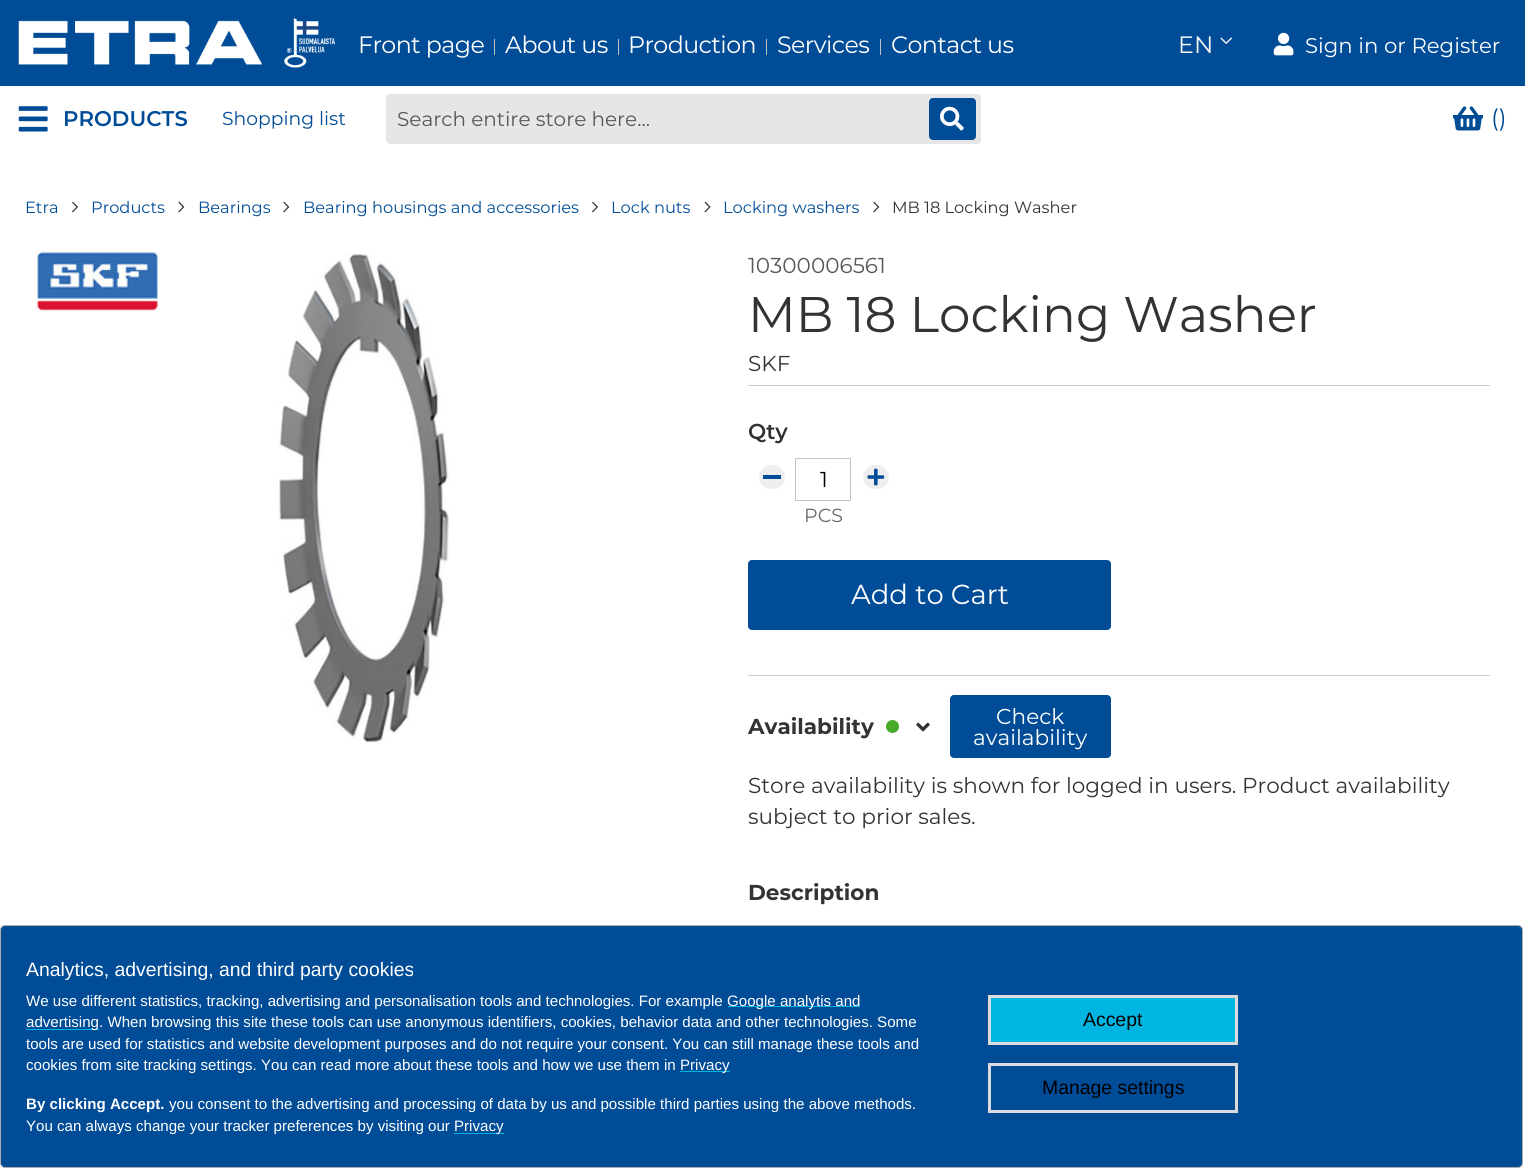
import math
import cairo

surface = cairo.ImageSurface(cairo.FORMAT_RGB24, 1525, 1168)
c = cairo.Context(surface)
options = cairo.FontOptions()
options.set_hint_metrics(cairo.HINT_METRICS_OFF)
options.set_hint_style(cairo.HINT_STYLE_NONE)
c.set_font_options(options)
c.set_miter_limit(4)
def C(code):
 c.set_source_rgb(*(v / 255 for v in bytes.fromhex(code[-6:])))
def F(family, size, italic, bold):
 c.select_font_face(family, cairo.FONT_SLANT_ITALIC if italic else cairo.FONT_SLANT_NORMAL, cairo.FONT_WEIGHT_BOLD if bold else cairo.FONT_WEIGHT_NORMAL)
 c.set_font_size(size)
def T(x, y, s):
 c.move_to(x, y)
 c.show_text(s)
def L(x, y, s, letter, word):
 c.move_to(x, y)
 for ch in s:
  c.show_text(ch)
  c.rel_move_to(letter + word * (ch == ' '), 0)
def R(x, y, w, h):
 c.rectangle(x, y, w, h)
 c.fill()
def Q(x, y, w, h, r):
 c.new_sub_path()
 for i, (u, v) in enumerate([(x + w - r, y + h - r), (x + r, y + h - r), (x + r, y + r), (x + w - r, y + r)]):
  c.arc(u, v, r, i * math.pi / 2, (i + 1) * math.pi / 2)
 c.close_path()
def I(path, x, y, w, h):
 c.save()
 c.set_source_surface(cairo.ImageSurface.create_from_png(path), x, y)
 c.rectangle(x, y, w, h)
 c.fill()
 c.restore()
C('ffffff')
c.paint()
C('004c97')
R(0,0,1525,86)
I('1.png',18,18,317,50)
F('Montserrat',23.75,0,0)
C('ffffff')
L(358,53,'Front page',-.6,0)
C('c1c1c1')
R(494,39,1,16)
C('ffffff')
L(505,53,'About us',-.6,0)
C('c1c1c1')
R(618,39,1,16)
C('ffffff')
L(628,53,'Production',-.6,0)
C('c1c1c1')
R(766,39,1,16)
C('ffffff')
L(777,53,'Services',-.6,0)
C('c1c1c1')
R(880,39,1,16)
C('ffffff')
L(891,53,'Contact us',-.6,0)
C('f6f6f6')
T(1178,53,'EN')
I('2.png',1220,37,13,8)
I('3.png',1273,32,21,24)
F('Montserrat',21.25,0,0)
C('ffffff')
T(1305,53,'Sign in or Register')
I('4.png',18,106,30,26)
F('Montserrat SemiBold',21.25,0,0)
C('004c97')
T(63,126,'PRODUCTS')
F('Montserrat',18.75,0,0)
T(222,125,'Shopping list')
C('e6e6e6')
Q(386,94,595,50,4)
c.fill()
F('Montserrat',20,0,0)
C('575757')
T(397,126,'Search entire store here...')
C('004c97')
Q(929,98,47,42,4)
c.fill()
I('5.png',940,106,24,25)
I('6.png',1453,106,30,25)
F('Montserrat',23.75,0,0)
T(1491,126,'()')
F('Montserrat',16.25,0,0)
T(25,213,'Etra')
I('7.png',72,201,6,12)
T(91,213,'Products')
I('8.png',178,201,7,12)
T(198,213,'Bearings')
I('8.png',283,201,7,12)
T(303,213,'Bearing housings and accessories')
I('7.png',592,201,6,12)
T(611,213,'Lock nuts')
I('9.png',704,201,7,12)
T(723,213,'Locking washers')
I('8.png',873,201,7,12)
C('333333')
T(892,213,'MB 18 Locking Washer')
I('10.png',35,250,125,61)
I('11.png',279,253,170,490)
F('Montserrat',21.6,0,0)
C('575757')
T(748,273,'10300006561')
F('Montserrat',50,0,0)
C('333333')
T(748,332,'MB 18 Locking Washer')
F('Montserrat',21.6,0,0)
T(748,371,'SKF')
C('cccccc')
R(748,385,742,1)
F('Montserrat SemiBold',21.6,0,0)
C('333333')
T(748,439,'Qty')
C('eeeeee')
Q(759,465,26,24,12)
c.fill()
C('004c97')
R(763,475,18,4)
Q(795.5,458.5,55,42,.5)
C('c2c2c2')
c.set_line_width(1)
c.stroke()
F('Montserrat',21.6,0,0)
C('000000')
T(820,487,'1')
C('eeeeee')
Q(863,465,26,24,12)
c.fill()
I('12.png',867,468,18,18)
F('Montserrat',19,0,0)
C('666666')
T(804,522,'PCS')
C('004c97')
Q(748.5,560.5,362,69,3.5)
c.fill_preserve()
c.stroke()
F('Montserrat',27.5,0,0)
C('ffffff')
T(851,604,'Add to Cart')
C('cccccc')
R(748,675,742,1)
F('Montserrat',21.6,0,1)
C('333333')
T(748,734,'Availability')
C('47aa29')
c.new_path()
c.arc(892.5,726.5,6.5,0,2 * math.pi)
c.fill()
I('13.png',916,722,14,10)
C('004c97')
Q(950.5,695.5,160,62,3.5)
c.fill_preserve()
c.stroke()
F('Montserrat',21.6,0,0)
C('ffffff')
T(996,724,'Check')
T(973,745,'availability')
C('333333')
T(748,793,'Store availability is shown for logged in users. Product availability')
T(748,824,'subject to prior sales.')
F('Montserrat',21.6,0,1)
T(748,900,'Description')
C('004c97')
Q(.5,925.5,1522,242,4.5)
c.fill_preserve()
C('afafaf')
c.stroke()
F('Liberation Sans',19.4,0,0)
C('ffffff')
T(26,976,'Analytics, advertising, and third party cookies')
F('Liberation Sans',15.1,0,0)
T(26,1006,'We use different statistics, tracking, advertising and personalisation tools and technologies. For example')
C('00b5e2')
R(728,1006,132,1)
C('ffffff')
T(727,1006,'Google analytis and')
C('00b5e2')
R(26,1029,73,1)
C('ffffff')
T(26,1027,'advertising. When browsing this site these tools can use anonymous identifiers, cookies, behavior data and other technologies. Some')
T(26,1049,'tools are used for statistics and website development purposes and do not require your consent. You can still manage these tools and')
T(26,1070,'cookies from site tracking settings. You can read more about these tools and how we use them in')
C('00b5e2')
R(680,1071,50,1)
C('ffffff')
T(680,1070,'Privacy')
F('Liberation Sans',15.1,0,1)
T(26,1109,'By clicking Accept.')
F('Liberation Sans',15.1,0,0)
T(169,1109,'you consent to the advertising and processing of data by us and possible third parties using the above methods.')
T(26,1131,'You can always change your tracker preferences by visiting our')
C('00b5e2')
R(454,1133,50,1)
C('ffffff')
T(454,1131,'Privacy')
C('00b5e2')
c.rectangle(989.5,996.5,247,47)
c.fill_preserve()
C('dbdbdb')
c.set_line_width(3)
c.stroke()
F('Liberation Sans',19.4,0,0)
C('000000')
T(1083,1026,'Accept')
c.rectangle(989.5,1064.5,247,47)
C('dbdbdb')
c.stroke()
C('000000')
T(1042,1094,'Manage settings')
surface.write_to_png('o.png')
